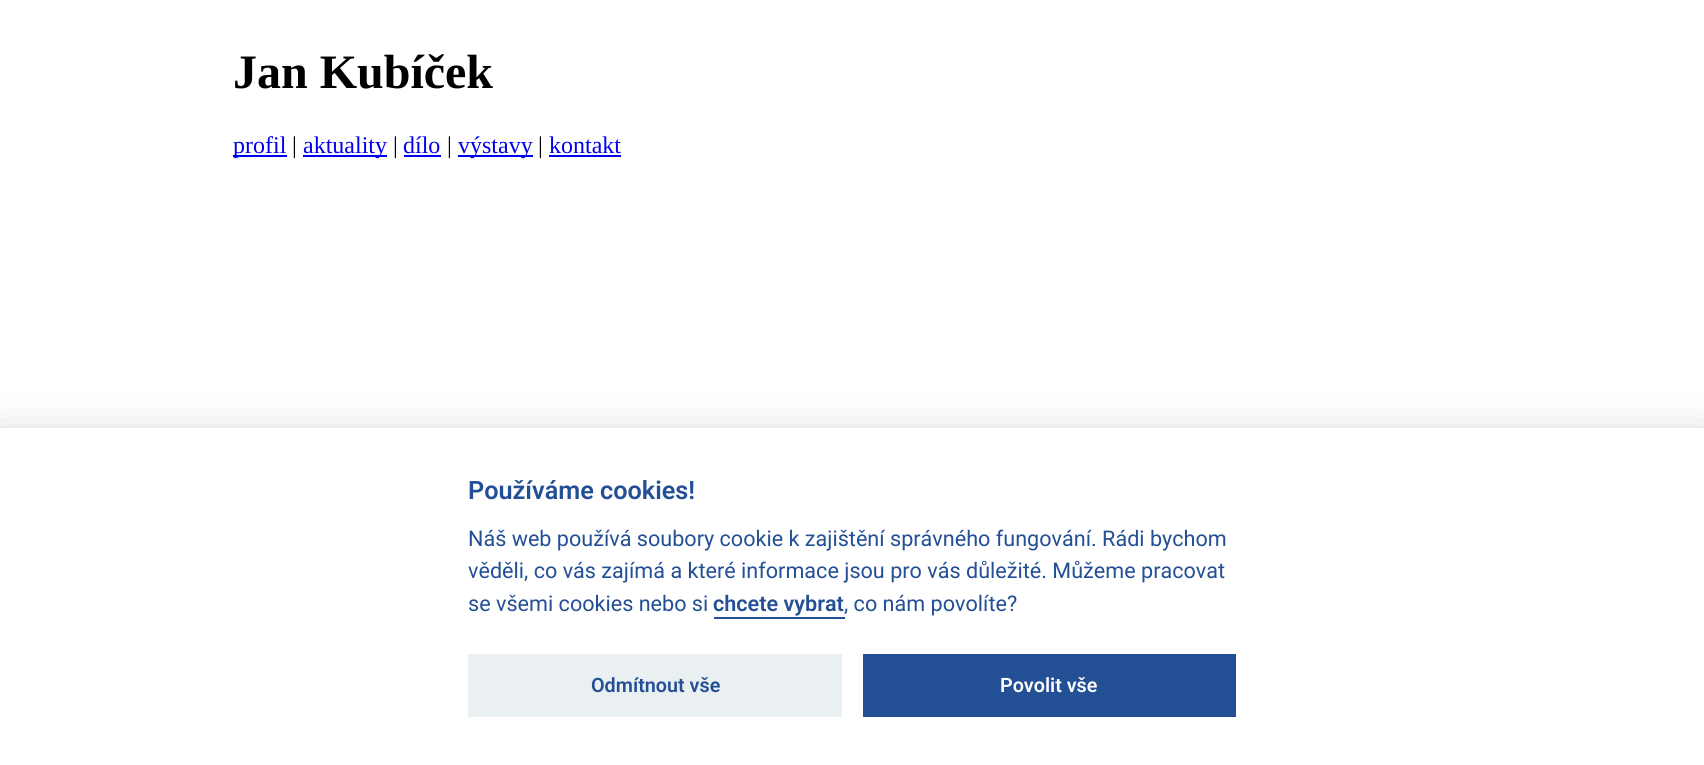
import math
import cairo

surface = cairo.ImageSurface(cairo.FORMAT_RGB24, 1704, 765)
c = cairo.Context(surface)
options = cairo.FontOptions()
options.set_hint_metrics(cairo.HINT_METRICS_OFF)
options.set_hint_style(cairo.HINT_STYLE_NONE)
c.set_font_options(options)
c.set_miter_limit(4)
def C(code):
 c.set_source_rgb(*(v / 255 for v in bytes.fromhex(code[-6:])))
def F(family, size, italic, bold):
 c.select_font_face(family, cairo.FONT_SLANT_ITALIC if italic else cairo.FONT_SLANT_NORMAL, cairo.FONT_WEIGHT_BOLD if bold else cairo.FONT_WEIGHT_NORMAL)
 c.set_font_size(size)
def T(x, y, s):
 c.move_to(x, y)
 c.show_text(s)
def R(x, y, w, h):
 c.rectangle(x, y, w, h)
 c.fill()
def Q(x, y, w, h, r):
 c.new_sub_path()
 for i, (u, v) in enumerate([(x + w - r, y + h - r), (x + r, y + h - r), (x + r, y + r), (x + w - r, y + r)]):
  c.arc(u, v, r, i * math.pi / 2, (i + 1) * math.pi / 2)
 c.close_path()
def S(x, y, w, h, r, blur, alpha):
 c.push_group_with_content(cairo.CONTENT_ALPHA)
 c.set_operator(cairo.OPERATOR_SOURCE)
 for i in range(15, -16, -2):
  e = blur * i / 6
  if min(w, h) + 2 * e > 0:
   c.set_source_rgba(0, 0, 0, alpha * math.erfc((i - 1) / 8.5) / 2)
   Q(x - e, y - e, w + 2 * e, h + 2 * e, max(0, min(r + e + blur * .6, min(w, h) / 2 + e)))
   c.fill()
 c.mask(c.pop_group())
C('ffffff')
c.paint()
F('Liberation Serif',48,0,1)
C('000000')
T(233,88,'Jan Kubíček')
C('0000ee')
R(233,155,54,2)
F('Liberation Serif',24,0,0)
T(233,153,'profil')
C('000000')
T(292,153,'|')
C('0000ee')
R(303,155,84,2)
T(303,153,'aktuality')
C('000000')
T(393,153,'|')
C('0000ee')
T(403,153,'dílo')
R(404,155,37,2)
C('000000')
T(447,153,'|')
C('0000ee')
R(458,155,75,2)
T(458,153,'výstavy')
C('000000')
T(538,153,'|')
C('0000ee')
T(549,153,'kontakt')
R(549,155,72,2)
C('020203')
S(0,443,1704,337,0,22.5,.28)
C('ffffff')
R(0,428,1704,337)
F('Roboto SemiBold',25.25,0,0)
C('234f95')
T(468,499,'Používáme cookies!')
F('Roboto',21.6,0,0)
T(468,546,'Náš web používá soubory cookie k zajištění správného fungování. Rádi bychom')
T(468,578,'věděli, co vás zajímá a které informace jsou pro vás důležité. Můžeme pracovat')
T(468,611,'se všemi cookies nebo si')
F('Roboto SemiBold',21.6,0,0)
T(713,611,'chcete vybrat')
R(714,617,131,2)
F('Roboto',21.6,0,0)
T(844,611,', co nám povolíte?')
C('eaeff2')
R(468,654,374,63)
F('Roboto SemiBold',19.75,0,0)
C('234f95')
T(591,692,'Odmítnout vše')
R(863,654,373,63)
C('ffffff')
T(1000,692,'Povolit vše')
surface.write_to_png('o.png')
